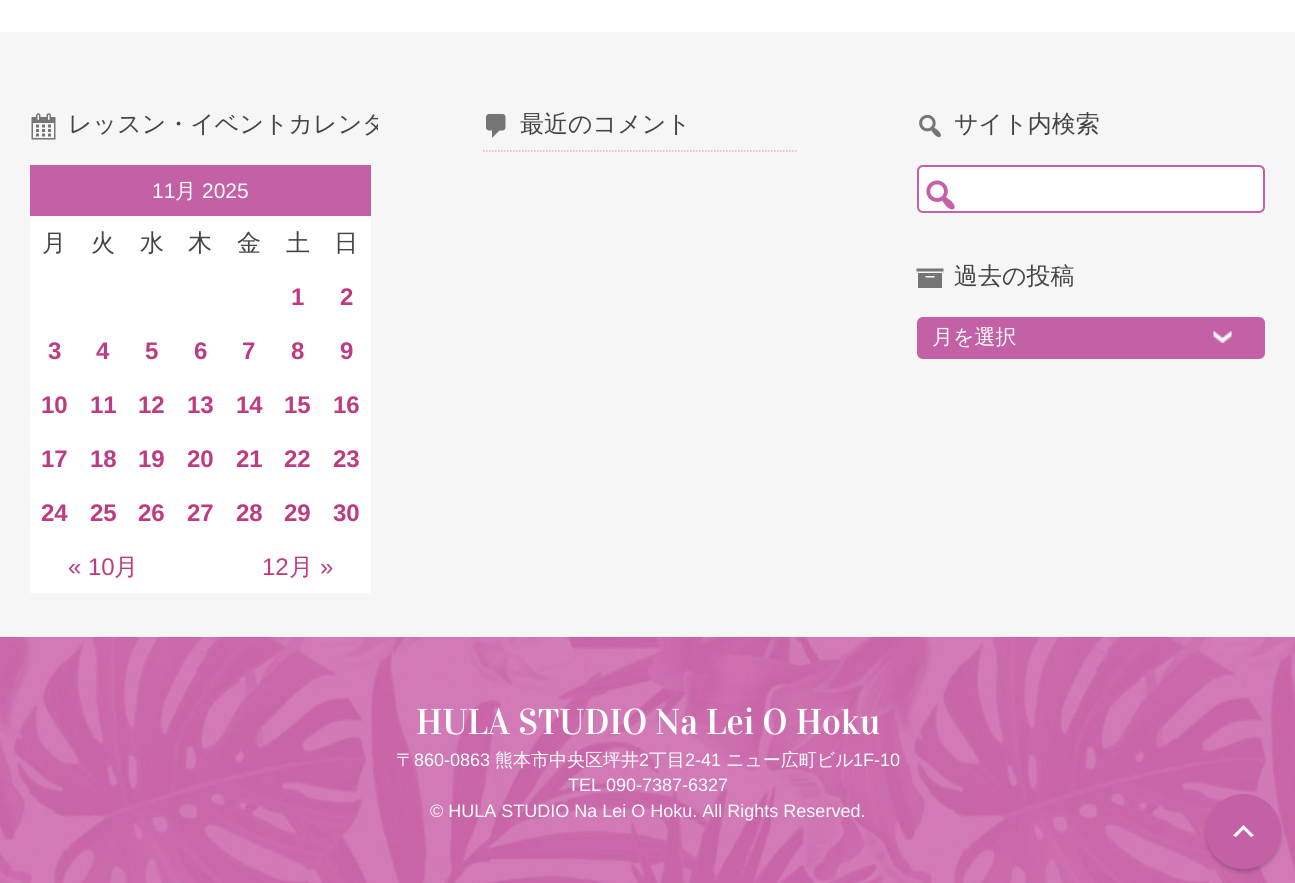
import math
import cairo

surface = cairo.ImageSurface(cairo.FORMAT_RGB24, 1295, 883)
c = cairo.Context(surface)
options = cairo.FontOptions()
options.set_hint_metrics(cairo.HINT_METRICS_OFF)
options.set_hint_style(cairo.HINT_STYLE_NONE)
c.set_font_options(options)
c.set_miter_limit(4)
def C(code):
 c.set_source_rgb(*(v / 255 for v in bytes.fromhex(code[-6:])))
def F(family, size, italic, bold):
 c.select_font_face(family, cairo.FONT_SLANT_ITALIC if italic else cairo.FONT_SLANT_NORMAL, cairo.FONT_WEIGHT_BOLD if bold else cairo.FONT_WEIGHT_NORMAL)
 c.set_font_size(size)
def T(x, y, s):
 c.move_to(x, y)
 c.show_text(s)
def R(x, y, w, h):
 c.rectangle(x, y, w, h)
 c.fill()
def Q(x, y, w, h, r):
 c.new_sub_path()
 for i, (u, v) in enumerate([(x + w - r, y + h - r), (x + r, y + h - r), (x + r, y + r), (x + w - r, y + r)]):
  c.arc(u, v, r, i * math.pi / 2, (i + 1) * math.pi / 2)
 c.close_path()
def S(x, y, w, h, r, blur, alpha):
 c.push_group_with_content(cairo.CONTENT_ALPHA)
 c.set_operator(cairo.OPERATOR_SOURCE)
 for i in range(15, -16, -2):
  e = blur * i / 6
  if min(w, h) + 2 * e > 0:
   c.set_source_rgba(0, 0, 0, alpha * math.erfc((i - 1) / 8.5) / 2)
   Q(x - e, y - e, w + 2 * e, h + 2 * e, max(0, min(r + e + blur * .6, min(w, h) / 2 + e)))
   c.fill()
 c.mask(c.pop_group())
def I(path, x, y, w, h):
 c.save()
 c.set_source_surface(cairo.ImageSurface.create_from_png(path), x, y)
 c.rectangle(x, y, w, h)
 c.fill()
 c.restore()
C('ffffff')
c.paint()
C('f6f6f6')
R(0,32,1295,605)
I('1.png',31,113,25,27)
c.save()
c.rectangle(30,77,348,516)
c.clip()
F('WenQuanYi Zen Hei Medium',24,0,0)
C('444444')
T(68,132,'レッスン・イベントカレンダ')
c.restore()
C('c460a6')
R(30,165,341,51)
F('Liberation Sans',21,0,0)
C('ffffff')
T(152,198,'11')
F('WenQuanYi Zen Hei Medium',21,0,0)
T(175,198,'月')
F('Liberation Sans',21,0,0)
T(202,198,'2025')
R(30,216,341,270)
F('WenQuanYi Zen Hei Medium',24,0,0)
C('444444')
T(42,251,'月')
T(91,251,'火')
T(140,251,'水')
T(188,251,'木')
T(237,251,'金')
T(286,251,'土')
T(334,251,'日')
F('Liberation Sans',24,0,1)
C('bf3b81')
T(291,305,'1')
T(340,305,'2')
T(48,359,'3')
T(96,359,'4')
T(145,359,'5')
T(194,359,'6')
T(242,359,'7')
T(291,359,'8')
T(340,359,'9')
T(41,413,'10')
T(90,413,'11')
T(138,413,'12')
T(187,413,'13')
T(236,413,'14')
T(284,413,'15')
T(333,413,'16')
T(41,467,'17')
T(90,467,'18')
T(138,467,'19')
T(187,467,'20')
T(236,467,'21')
T(284,467,'22')
T(333,467,'23')
C('ffffff')
R(30,486,341,107)
C('bf3b81')
T(41,521,'24')
T(90,521,'25')
T(138,521,'26')
T(187,521,'27')
T(236,521,'28')
T(284,521,'29')
T(333,521,'30')
F('Liberation Sans',24,0,0)
T(68,575,'« 10')
F('WenQuanYi Zen Hei Medium',24,0,0)
T(114,575,'月')
F('Liberation Sans',24,0,0)
T(262,575,'12')
F('WenQuanYi Zen Hei Medium',24,0,0)
T(289,575,'月')
F('Liberation Sans',24,0,0)
T(320,575,'»')
I('2.png',486,114,20,24)
F('WenQuanYi Zen Hei Medium',24,0,0)
C('444444')
T(520,132,'最近のコメント')
c.new_path()
c.move_to(483,151)
c.line_to(796.5,151)
C('eaafda')
c.set_line_width(1.5)
c.set_dash([1.5,1.5])
c.stroke()
I('3.png',919,114,22,24)
C('444444')
T(954,132,'サイト内検索')
C('ffffff')
Q(918,166,346,46,5)
c.fill_preserve()
C('c460a6')
c.set_line_width(2)
c.set_dash([])
c.stroke()
I('4.png',926,180,29,30)
I('5.png',916,268,28,20)
C('444444')
T(954,284,'過去の投稿')
C('c460a6')
Q(917,317,348,42,6)
c.fill()
I('6.png',1213,331,19,12)
F('WenQuanYi Zen Hei Medium',21,0,0)
C('ffffff')
T(932,344,'月を選択')
I('7.png',0,637,1295,246)
F('Vidaloka',36,0,0)
T(416,734,'HULA STUDIO Na Lei O Hoku')
F('WenQuanYi Zen Hei Medium',18,0,0)
T(396,766,'〒')
F('Liberation Sans',18,0,0)
T(414,766,'860-0863')
F('WenQuanYi Zen Hei Medium',18,0,0)
T(495,766,'熊本市中央区坪井')
F('Liberation Sans',18,0,0)
T(639,766,'2')
F('WenQuanYi Zen Hei Medium',18,0,0)
T(649,766,'丁目')
F('Liberation Sans',18,0,0)
T(685,766,'2-41')
F('WenQuanYi Zen Hei Medium',18,0,0)
T(726,766,'ニュー広町ビル')
F('Liberation Sans',18,0,0)
T(853,766,'1F-10')
T(568,791,'TEL 090-7387-6327')
T(430,817,'© HULA STUDIO Na Lei O Hoku. All Rights Reserved.')
C('000000')
S(1206,797,75,75,37.5,2,.2)
C('c460a6')
c.arc(1243.5,831.5,37.5,0,2 * math.pi)
c.fill()
C('ffffff')
c.new_path()
c.move_to(1251,837)
c.line_to(1243.5,829.5)
c.line_to(1236,837)
c.line_to(1233,835.5)
c.line_to(1243.5,825)
c.line_to(1254,835.5)
c.close_path()
c.fill()
surface.write_to_png('o.png')
